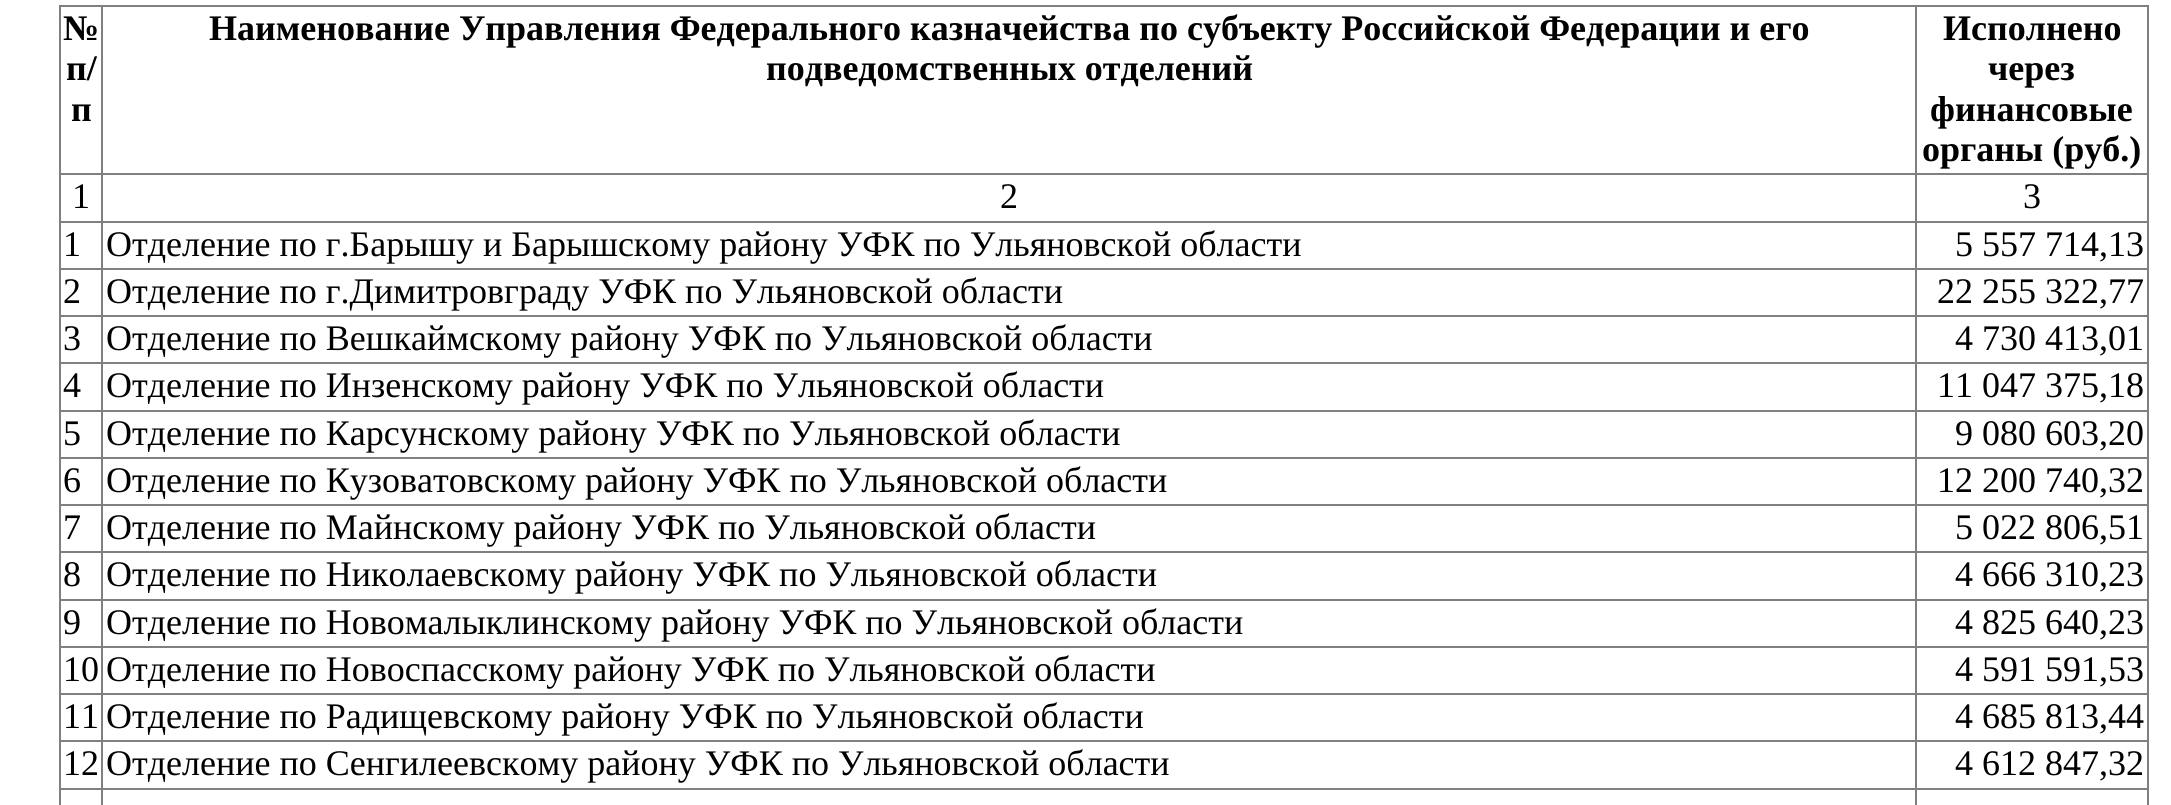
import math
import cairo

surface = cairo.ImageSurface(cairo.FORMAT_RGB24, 2171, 805)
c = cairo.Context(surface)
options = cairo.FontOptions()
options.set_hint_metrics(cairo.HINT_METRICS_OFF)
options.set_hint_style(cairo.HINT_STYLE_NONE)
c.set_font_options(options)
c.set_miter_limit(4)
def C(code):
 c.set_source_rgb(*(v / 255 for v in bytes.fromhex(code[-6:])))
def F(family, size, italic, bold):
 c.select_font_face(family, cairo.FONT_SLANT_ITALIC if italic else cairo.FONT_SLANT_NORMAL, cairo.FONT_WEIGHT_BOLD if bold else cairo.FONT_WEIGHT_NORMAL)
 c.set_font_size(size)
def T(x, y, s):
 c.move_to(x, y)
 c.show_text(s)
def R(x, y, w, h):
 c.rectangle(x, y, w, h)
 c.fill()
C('ffffff')
c.paint()
C('808080')
R(59,5,2090,2)
R(2147,5,2,800)
R(59,5,2,800)
F('Liberation Serif',36,0,1)
C('000000')
T(63,40,'№')
T(66,80,'п/')
T(71,121,'п')
C('808080')
R(1915,173,234,2)
R(1915,221,234,2)
R(1915,268,234,2)
R(1915,315,234,2)
R(1915,362,234,2)
R(1915,410,234,2)
R(1915,457,234,2)
R(1915,504,234,2)
R(1915,551,234,2)
R(1915,599,234,2)
R(1915,646,234,2)
R(1915,693,234,2)
R(1915,740,234,2)
R(1915,788,234,2)
R(1915,788,2,17)
R(101,788,1816,2)
R(1915,740,2,50)
R(101,740,1816,2)
R(1915,693,2,50)
R(101,693,1816,2)
R(1915,646,2,49)
R(101,646,1816,2)
R(1915,599,2,49)
R(101,599,1816,2)
R(1915,551,2,50)
R(101,551,1816,2)
R(1915,504,2,50)
R(101,504,1816,2)
R(1915,457,2,49)
R(101,457,1816,2)
R(1915,410,2,49)
R(101,410,1816,2)
R(1915,362,2,50)
R(101,362,1816,2)
R(1915,315,2,50)
R(101,315,1816,2)
R(1915,268,2,49)
R(101,268,1816,2)
R(1915,221,2,49)
R(101,221,1816,2)
R(1915,173,2,50)
R(101,173,1816,2)
R(101,788,2,17)
R(59,788,45,2)
R(101,740,2,50)
R(59,740,45,2)
R(101,693,2,50)
R(59,693,45,2)
R(101,646,2,49)
R(59,646,45,2)
R(101,599,2,49)
R(59,599,45,2)
R(101,551,2,50)
R(59,551,45,2)
R(101,504,2,50)
R(59,504,45,2)
R(101,457,2,49)
R(59,457,45,2)
R(101,410,2,49)
R(59,410,45,2)
R(101,362,2,50)
R(59,362,45,2)
R(101,315,2,50)
R(59,315,45,2)
R(101,268,2,49)
R(59,268,45,2)
R(101,221,2,49)
R(59,221,45,2)
R(101,173,2,50)
R(59,173,45,2)
R(101,5,2,171)
C('000000')
T(209,40,'Наименование Управления Федерального казначейства по субъекту Российской Федерации и его')
T(766,80,'подведомственных отделений')
C('808080')
R(1915,5,2,171)
C('000000')
T(1943,40,'Исполнено')
T(1988,80,'через')
T(1930,121,'финансовые')
T(1922,161,'органы (руб.)')
F('Liberation Serif',36,0,0)
T(72,208,'1')
T(1000,208,'2')
T(2023,208,'3')
T(63,256,'1')
T(106,256,'Отделение по г.Барышу и Барышскому району УФК по Ульяновской области')
T(1955,256,'5 557 714,13')
T(63,303,'2')
T(106,303,'Отделение по г.Димитровграду УФК по Ульяновской области')
T(1937,303,'22 255 322,77')
T(63,350,'3')
T(106,350,'Отделение по Вешкаймскому району УФК по Ульяновской области')
T(1955,350,'4 730 413,01')
T(63,397,'4')
T(106,397,'Отделение по Инзенскому району УФК по Ульяновской области')
T(1937,397,'11 047 375,18')
T(63,445,'5')
T(106,445,'Отделение по Карсунскому району УФК по Ульяновской области')
T(1955,445,'9 080 603,20')
T(63,492,'6')
T(106,492,'Отделение по Кузоватовскому району УФК по Ульяновской области')
T(1937,492,'12 200 740,32')
T(63,539,'7')
T(106,539,'Отделение по Майнскому району УФК по Ульяновской области')
T(1955,539,'5 022 806,51')
T(63,586,'8')
T(106,586,'Отделение по Николаевскому району УФК по Ульяновской области')
T(1955,586,'4 666 310,23')
T(63,634,'9')
T(106,634,'Отделение по Новомалыклинскому району УФК по Ульяновской области')
T(1955,634,'4 825 640,23')
T(63,681,'10')
T(106,681,'Отделение по Новоспасскому району УФК по Ульяновской области')
T(1955,681,'4 591 591,53')
T(63,728,'11')
T(106,728,'Отделение по Радищевскому району УФК по Ульяновской области')
T(1955,728,'4 685 813,44')
T(63,775,'12')
T(106,775,'Отделение по Сенгилеевскому району УФК по Ульяновской области')
T(1955,775,'4 612 847,32')
surface.write_to_png('o.png')
